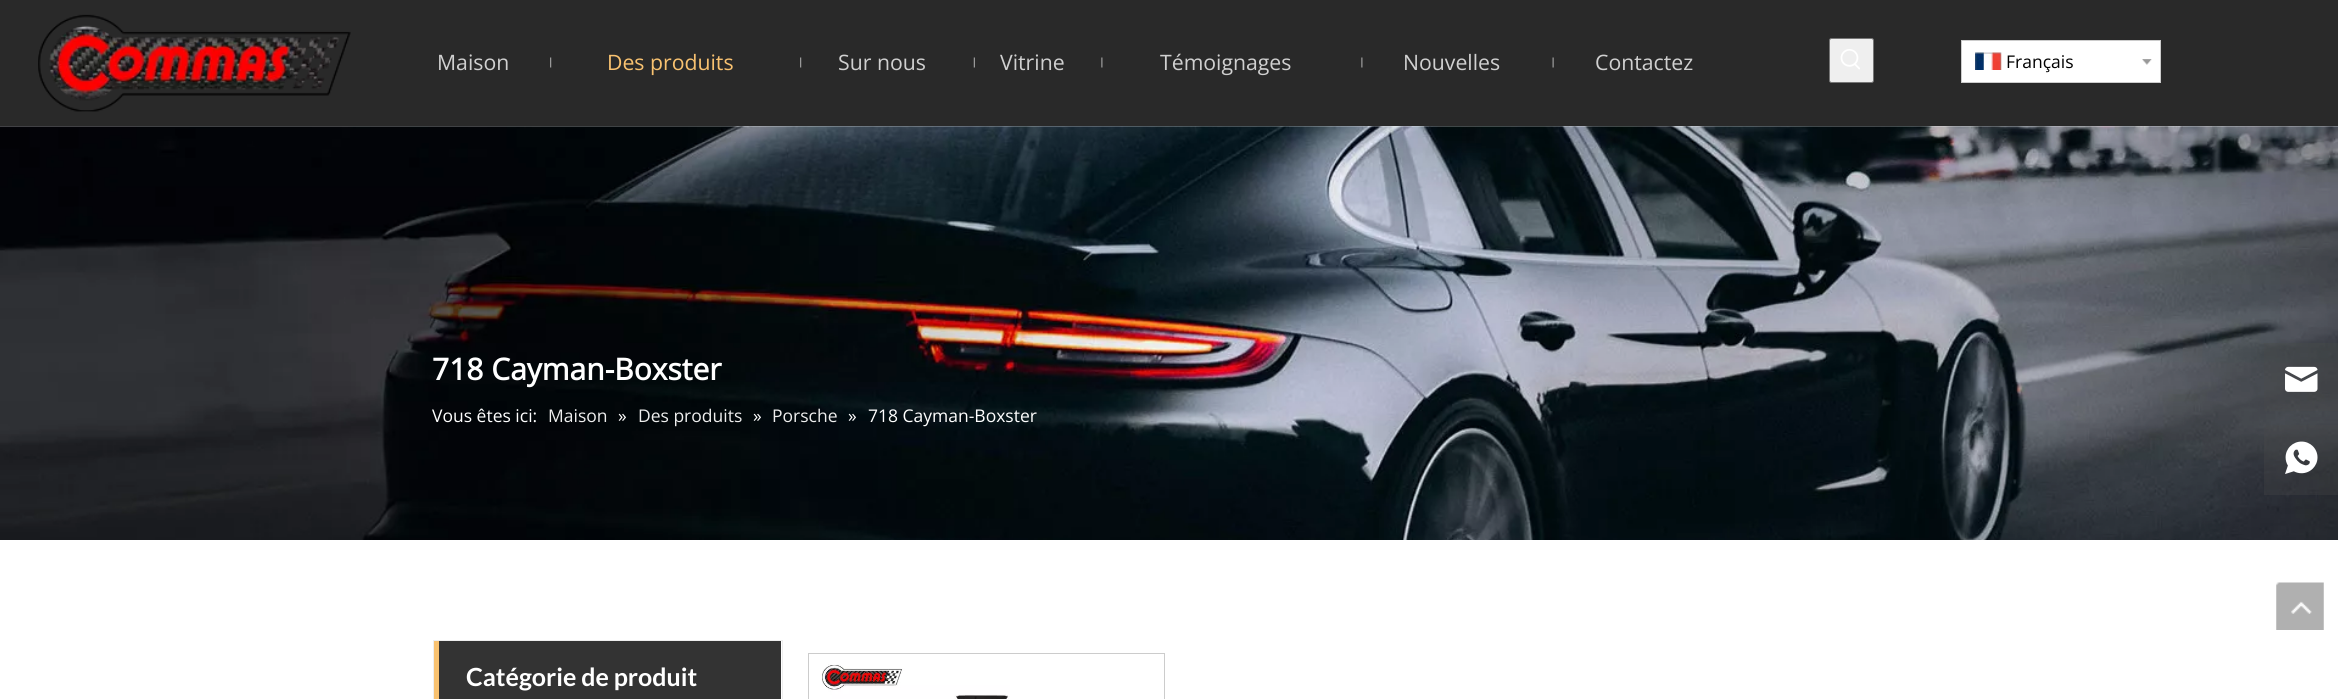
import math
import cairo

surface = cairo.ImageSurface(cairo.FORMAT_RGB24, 2338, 699)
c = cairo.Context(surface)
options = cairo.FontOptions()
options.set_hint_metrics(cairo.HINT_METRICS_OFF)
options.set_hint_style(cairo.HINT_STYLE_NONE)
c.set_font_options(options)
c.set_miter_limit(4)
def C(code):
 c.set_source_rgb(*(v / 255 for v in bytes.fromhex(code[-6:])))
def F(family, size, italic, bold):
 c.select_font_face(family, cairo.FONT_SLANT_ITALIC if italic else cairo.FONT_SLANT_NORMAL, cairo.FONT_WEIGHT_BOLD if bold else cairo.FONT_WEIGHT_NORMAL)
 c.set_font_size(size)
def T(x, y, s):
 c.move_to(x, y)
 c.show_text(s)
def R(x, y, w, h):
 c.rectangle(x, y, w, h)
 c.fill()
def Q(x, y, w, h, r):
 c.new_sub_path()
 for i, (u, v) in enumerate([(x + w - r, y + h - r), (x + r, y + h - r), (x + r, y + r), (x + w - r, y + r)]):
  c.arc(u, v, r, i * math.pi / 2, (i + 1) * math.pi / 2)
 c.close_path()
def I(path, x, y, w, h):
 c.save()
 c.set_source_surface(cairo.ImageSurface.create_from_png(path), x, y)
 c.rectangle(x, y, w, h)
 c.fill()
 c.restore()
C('ffffff')
c.paint()
C('292929')
R(0,0,2338,126)
I('1.png',38,14,313,98)
F('Open Sans',21.25,0,0)
C('d0d0d0')
T(437,70,'Maison')
I('2.png',550,57,2,11)
C('f9c270')
T(607,70,'Des produits')
I('2.png',800,57,2,11)
C('d0d0d0')
T(838,70,'Sur nous')
I('3.png',973,57,2,11)
T(1000,70,'Vitrine')
I('4.png',1101,57,2,11)
T(1160,70,'Témoignages')
I('4.png',1361,57,2,11)
T(1403,70,'Nouvelles')
I('5.png',1552,57,2,11)
T(1595,70,'Contactez')
C('efefef')
Q(1829.5,38.5,44,44,2)
c.fill_preserve()
C('767676')
c.set_line_width(1)
c.stroke()
I('6.png',1840,49,20,21)
C('ffffff')
c.rectangle(1961.5,40.5,199,42)
c.fill_preserve()
C('cccccc')
c.stroke()
I('7.png',1975,52,27,18)
F('Open Sans',17.5,0,0)
C('000000')
T(2006,68,'Français')
I('8.png',2142,59,10,6)
I('9.png',0,126,2338,414)
F('Open Sans',30,0,1)
C('ffffff')
T(432,380,'718 Cayman-Boxster')
F('Open Sans',17.5,0,0)
T(432,422,'Vous êtes ici:')
C('eeeeee')
T(548,422,'Maison')
C('ffffff')
T(618,422,'»')
C('eeeeee')
T(638,422,'Des produits')
C('ffffff')
T(753,422,'»')
C('eeeeee')
T(772,422,'Porsche')
C('ffffff')
T(848,422,'»')
T(868,422,'718 Cayman-Boxster')
c.rectangle(433.5,640.5,349,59)
C('eeeeee')
c.stroke()
C('333333')
R(439,641,342,58)
C('f9c270')
R(434,641,5,58)
F('Lato',25,0,1)
C('ffffff')
T(466,686,'Catégorie de produit')
c.rectangle(808.5,653.5,356,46)
C('cccccc')
c.stroke()
I('10.png',822,664,188,35)
c.set_source_rgba(0.29,0.29,0.29,0.3)
R(2264,343,74,68)
I('11.png',2285,366,33,26)
R(2264,425,74,70)
I('12.png',2285,441,33,33)
I('13.png',2276,582,48,48)
surface.write_to_png('o.png')
